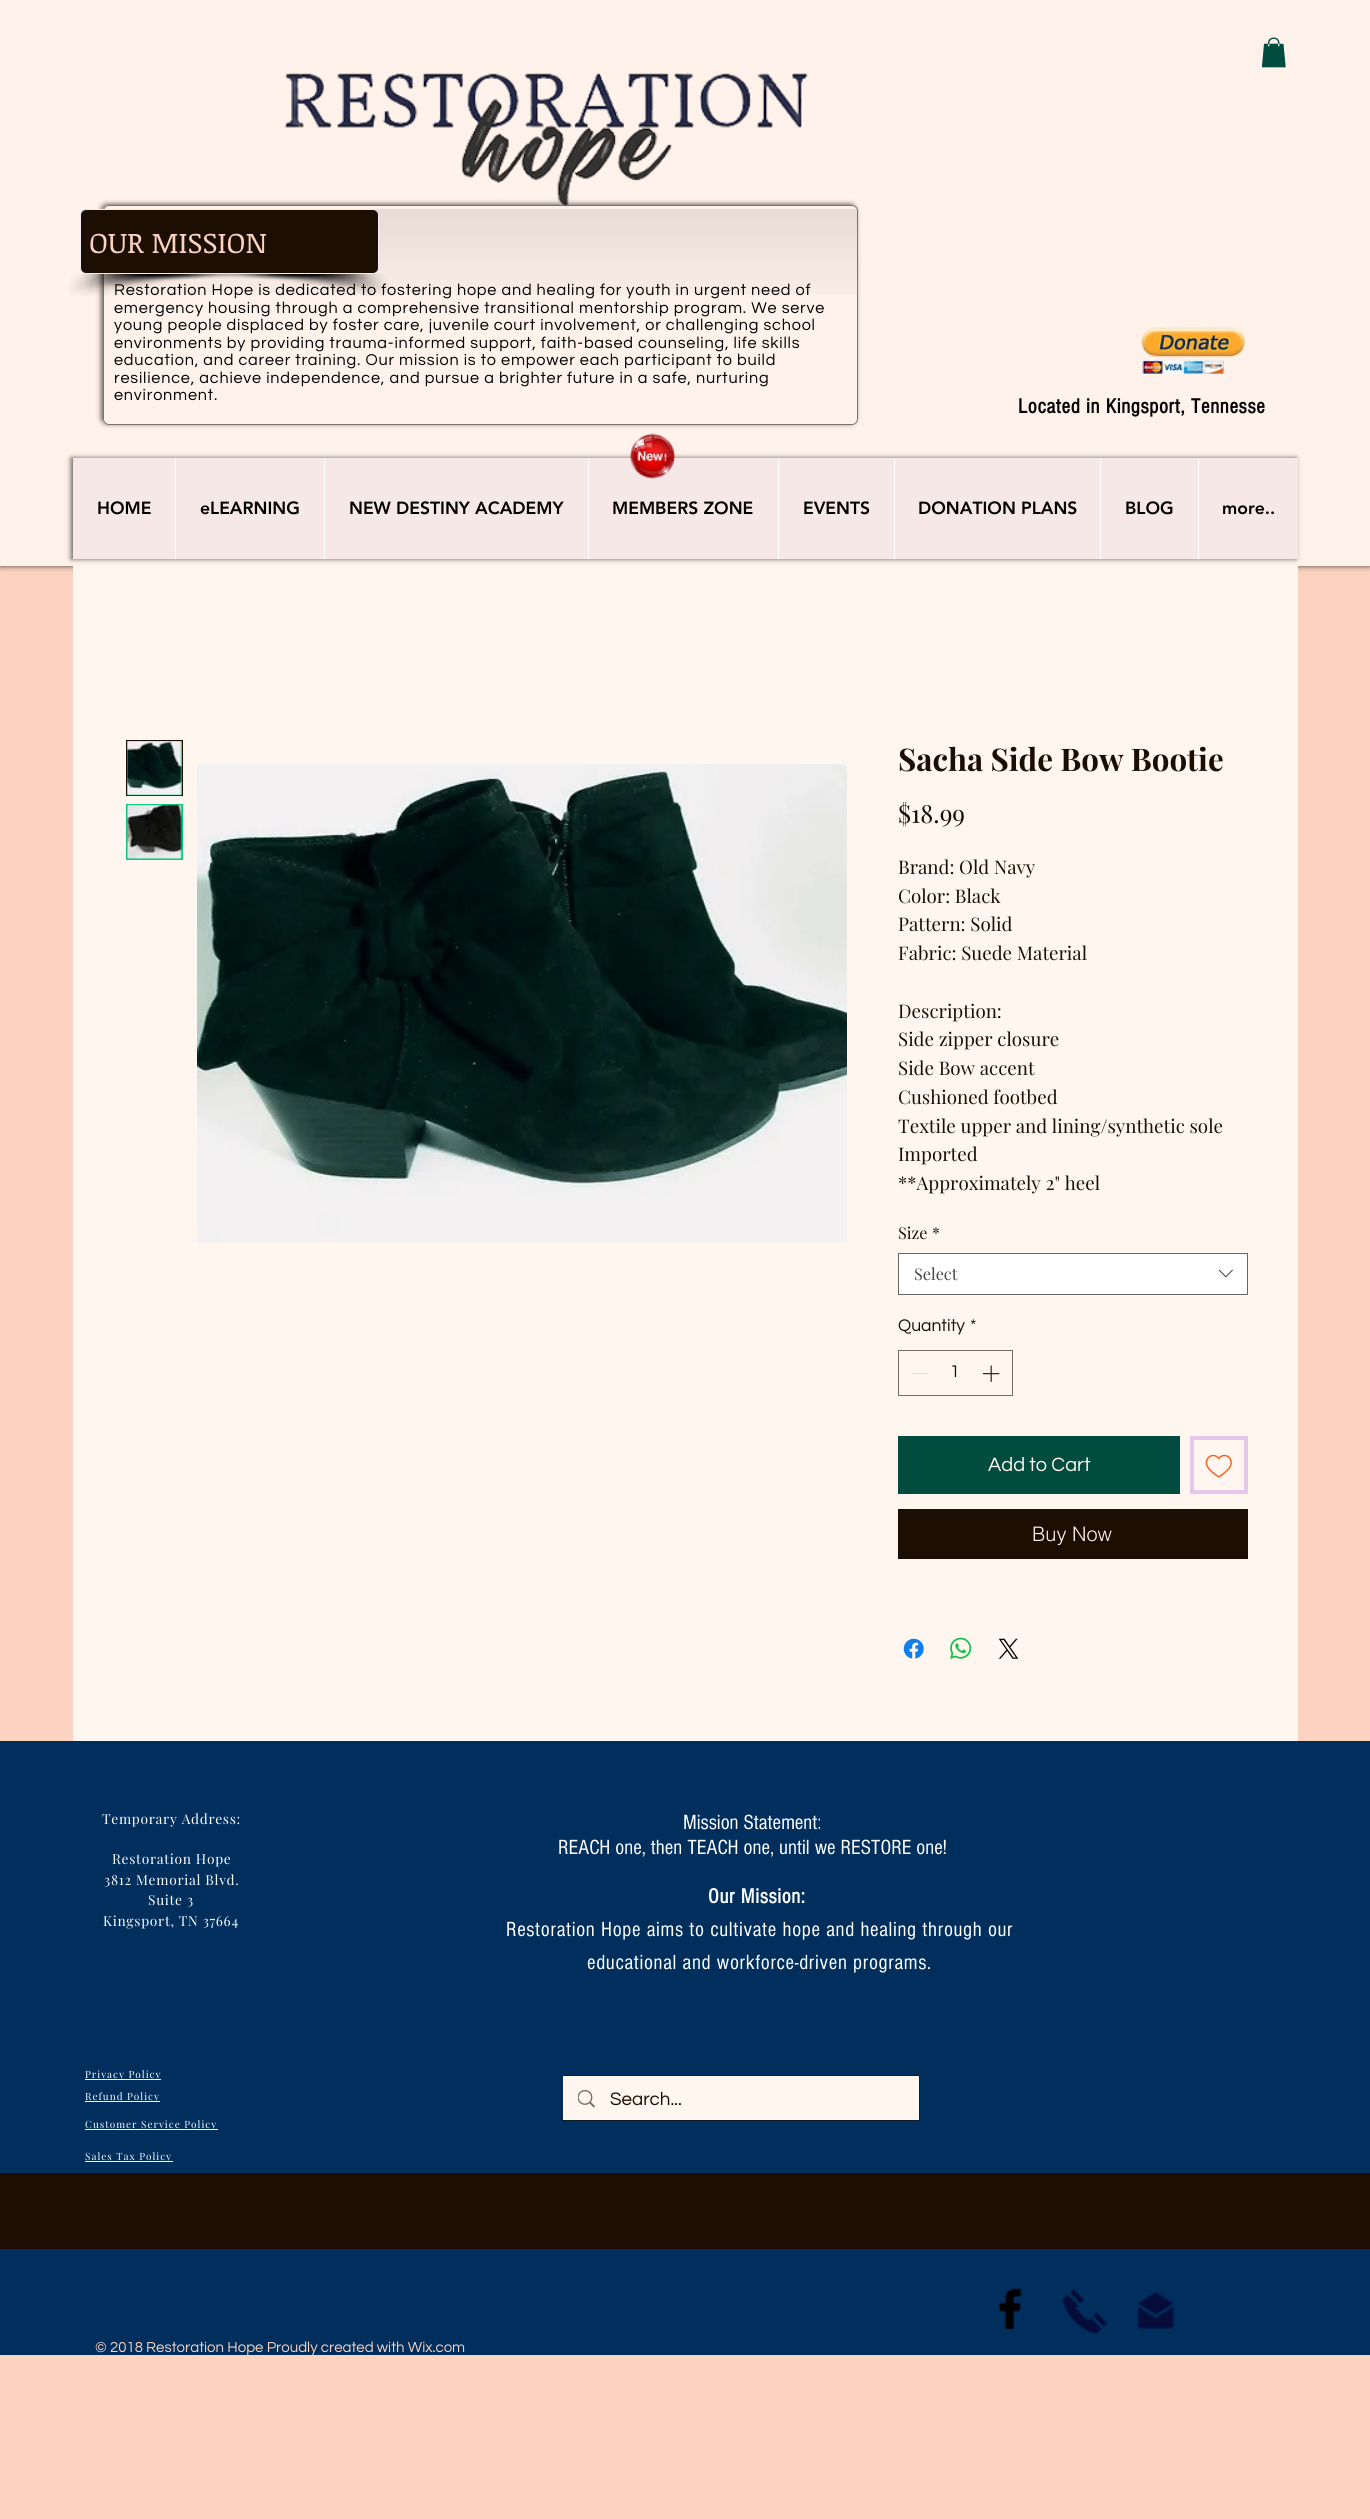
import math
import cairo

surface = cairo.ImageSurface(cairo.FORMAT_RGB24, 1370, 2519)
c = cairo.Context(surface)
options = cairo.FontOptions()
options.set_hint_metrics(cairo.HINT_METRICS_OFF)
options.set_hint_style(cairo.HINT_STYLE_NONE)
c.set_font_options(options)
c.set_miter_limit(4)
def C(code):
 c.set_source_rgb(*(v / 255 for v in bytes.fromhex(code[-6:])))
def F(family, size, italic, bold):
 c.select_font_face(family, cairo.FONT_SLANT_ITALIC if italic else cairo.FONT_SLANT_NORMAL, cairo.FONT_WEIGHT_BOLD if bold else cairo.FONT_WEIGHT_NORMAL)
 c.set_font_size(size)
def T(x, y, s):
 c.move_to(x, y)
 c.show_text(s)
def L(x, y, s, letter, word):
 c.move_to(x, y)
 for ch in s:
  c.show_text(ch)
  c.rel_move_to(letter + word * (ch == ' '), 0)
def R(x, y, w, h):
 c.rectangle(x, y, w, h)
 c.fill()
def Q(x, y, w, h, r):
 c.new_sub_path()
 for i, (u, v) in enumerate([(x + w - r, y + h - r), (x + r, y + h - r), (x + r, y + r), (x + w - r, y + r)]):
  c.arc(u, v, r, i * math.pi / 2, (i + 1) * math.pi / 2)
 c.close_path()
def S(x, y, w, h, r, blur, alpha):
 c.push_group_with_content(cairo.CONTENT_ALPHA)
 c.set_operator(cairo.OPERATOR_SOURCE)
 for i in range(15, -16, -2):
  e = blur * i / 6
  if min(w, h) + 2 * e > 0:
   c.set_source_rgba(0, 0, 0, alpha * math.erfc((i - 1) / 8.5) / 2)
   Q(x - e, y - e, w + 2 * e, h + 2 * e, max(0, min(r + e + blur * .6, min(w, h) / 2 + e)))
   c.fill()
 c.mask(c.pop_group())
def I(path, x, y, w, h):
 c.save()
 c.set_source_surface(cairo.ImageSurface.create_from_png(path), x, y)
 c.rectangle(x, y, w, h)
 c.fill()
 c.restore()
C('fbd3c0')
c.paint()
C('000000')
S(0,0,1370,566,0,3,.7)
C('fff2ea')
R(0,0,1370,566)
I('1.png',1261,37,25,31)
I('2.png',284,73,524,134)
c.save()
c.set_fill_rule(cairo.FILL_RULE_EVEN_ODD)
c.new_path()
c.move_to(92,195)
c.line_to(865,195)
c.line_to(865,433)
c.line_to(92,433)
c.close_path()
c.move_to(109,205)
c.line_to(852,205)
c.curve_to(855.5,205,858,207.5,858,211)
c.line_to(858,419)
c.curve_to(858,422.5,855.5,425,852,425)
c.line_to(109,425)
c.curve_to(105.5,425,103,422.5,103,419)
c.line_to(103,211)
c.curve_to(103,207.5,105.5,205,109,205)
c.close_path()
c.clip()
C('000000')
S(101,204,755,220,6,2.5,.6)
c.restore()
I('3.png',104,209,753,85)
Q(103.5,205.5,754,219,5.5)
C('7b736f')
c.set_line_width(1)
c.stroke()
C('1d0e03')
Q(80.5,209.5,298,64,5.5)
c.fill_preserve()
C('f3ebf5')
c.stroke()
F('Noticia Text',28.75,0,0)
C('fbd3c0')
T(89,253,'OUR MISSION')
I('4.png',69,274,186,22)
I('5.png',207,274,182,22)
F('Questrial',16.25,0,0)
C('000000')
L(114,295,'Restoration Hope is dedicated to fostering hope and healing for youth in urgent need of',.8,0)
L(114,313,'emergency housing through a comprehensive transitional mentorship program. We serve',.8,0)
L(114,330,'young people displaced by foster care, juvenile court involvement, or challenging school',.8,0)
L(114,348,'environments by providing trauma-informed support, faith-based counseling, life skills',.8,0)
L(114,365,'education, and career training. Our mission is to empower each participant to build',.8,0)
L(114,383,'resilience, achieve independence, and pursue a brighter future in a safe, nurturing',.8,0)
L(114,400,'environment.',.8,0)
I('6.png',1141,327,105,48)
F('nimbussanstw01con',21.25,0,1)
L(1018,413,'Located in Kingsport, Tennesse',.65,0)
c.save()
c.set_fill_rule(cairo.FILL_RULE_EVEN_ODD)
c.new_path()
c.move_to(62,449)
c.line_to(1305,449)
c.line_to(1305,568)
c.line_to(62,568)
c.close_path()
c.move_to(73,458)
c.line_to(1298,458)
c.line_to(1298,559)
c.line_to(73,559)
c.close_path()
c.clip()
C('000000')
S(71,458,1225,101,0,2.5,.6)
c.restore()
c.set_source_rgba(0.929,0.875,0.894,0.49)
R(73,458,1225,101)
I('7.png',630,433,46,46)
F('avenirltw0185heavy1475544 Black',17.5,0,0)
C('000000')
T(97,514,'HOME')
C('ffffff')
R(175,458,1,101)
C('000000')
T(200,514,'eLEARNING')
C('ffffff')
R(324,458,1,101)
C('000000')
T(349,514,'NEW DESTINY ACADEMY')
C('ffffff')
R(588,458,1,101)
C('000000')
T(612,514,'MEMBERS ZONE')
C('ffffff')
R(778,458,1,101)
C('000000')
T(803,514,'EVENTS')
C('ffffff')
R(894,458,1,101)
C('000000')
T(918,514,'DONATION PLANS')
C('ffffff')
R(1100,458,1,101)
C('000000')
T(1125,514,'BLOG')
C('ffffff')
R(1198,458,1,101)
C('000000')
T(1222,514,'more..')
C('fff6ef')
R(73,566,1225,1175)
C('02ca81')
c.rectangle(126.5,740.5,56,55)
c.fill_preserve()
C('1d0e03')
c.stroke()
I('8.png',127,741,55,55)
C('02ca81')
R(126,804,57,56)
I('9.png',127,804,55,56)
I('10.png',197,763,650,480)
F('Playfair Display',31.25,0,1)
C('1d0e03')
T(898,771,'Sacha Side Bow Bootie')
F('Playfair Display',25,0,0)
T(898,823,'$18.99')
F('Playfair Display',18.75,0,0)
T(898,874,'Brand: Old Navy')
T(898,903,'Color: Black')
T(898,931,'Pattern: Solid')
T(898,960,'Fabric: Suede Material')
T(898,1018,'Description:')
T(898,1046,'Side zipper closure')
T(898,1075,'Side Bow accent')
T(898,1104,'Cushioned footbed')
T(898,1133,'Textile upper and lining/synthetic sole')
T(898,1161,'Imported')
T(898,1190,'**Approximately 2" heel')
F('Playfair Display',16.25,0,0)
T(898,1239,'Size')
T(932,1239,'*')
C('ffffff')
c.rectangle(898.5,1253.5,349,41)
c.fill_preserve()
C('666666')
c.stroke()
C('444444')
T(914,1280,'Select')
I('11.png',1218,1269,15,9)
F('Questrial',17.5,0,0)
C('1d0e03')
T(898,1331,'Quantity')
T(970,1331,'*')
c.rectangle(898.5,1350.5,114,45)
C('776b61')
c.stroke()
C('e3dfdb')
R(912,1373,16,1)
C('1d0e03')
T(950,1377,'1')
I('12.png',982,1365,18,17)
C('014b3f')
R(898,1436,282,58)
F('Questrial',20,0,0)
C('fff6ef')
T(988,1471,'Add to Cart')
c.rectangle(1192,1438,54,54)
C('e6c7eb')
c.set_line_width(4)
c.stroke()
I('13.png',1205,1454,27,24)
C('1d0e03')
R(898,1509,350,50)
F('helvetica Light',20,0,0)
C('fff6ef')
T(1032,1541,'Buy Now')
I('14.png',903,1638,21,21)
I('15.png',950,1637,22,22)
I('16.png',998,1638,21,21)
C('002e5d')
R(0,1741,1370,614)
F('Playfair Display',13.75,0,0)
C('ffffff')
L(102,1824,'Temporary Address:',.7,0)
L(112,1864,'Restoration Hope',.7,0)
L(104,1885,'3812 Memorial Blvd.',.7,0)
L(148,1905,'Suite 3',.7,0)
L(103,1926,'Kingsport, TN 37664',.7,0)
F('nimbussanstw01con',21.25,0,0)
T(683,1829,'Mission Statement:')
T(558,1854,'REACH one, then TEACH one, until we RESTORE one!')
F('nimbussanstw01con',21.25,0,1)
L(708,1903,'Our Mission:',.65,0)
F('nimbussanstw01con',21.25,0,0)
L(506,1936,'Restoration Hope aims to cultivate hope and healing through our',.65,0)
L(587,1969,'educational and workforce-driven programs.',.65,0)
R(85,2079,76,1)
F('Playfair Display',10,0,0)
L(85,2078,'Privacy Policy',1,0)
R(85,2101,75,1)
L(85,2100,'Refund Policy',1,0)
c.rectangle(561.5,2075.5,358,45)
C('111b27')
c.set_line_width(1)
c.stroke()
C('fff6ef')
R(563,2076,356,44)
I('17.png',578,2090,17,18)
F('Questrial',18.75,0,0)
C('1d0e03')
T(610,2105,'Search...')
C('ffffff')
R(85,2129,133,1)
F('Playfair Display',10,0,0)
L(85,2128,'Customer Service Policy',1,0)
R(85,2161,88,1)
L(85,2160,'Sales Tax Policy',1,0)
C('1d0e03')
R(0,2173,1370,76)
I('18.png',998,2288,24,41)
I('19.png',999,2288,23,41)
I('20.png',1062,2288,46,46)
I('21.png',1137,2292,37,37)
F('Questrial',15,0,0)
C('fbd3c0')
T(95,2352,'© 2018 Restoration Hope Proudly created with Wix.com')
surface.write_to_png('o.png')
